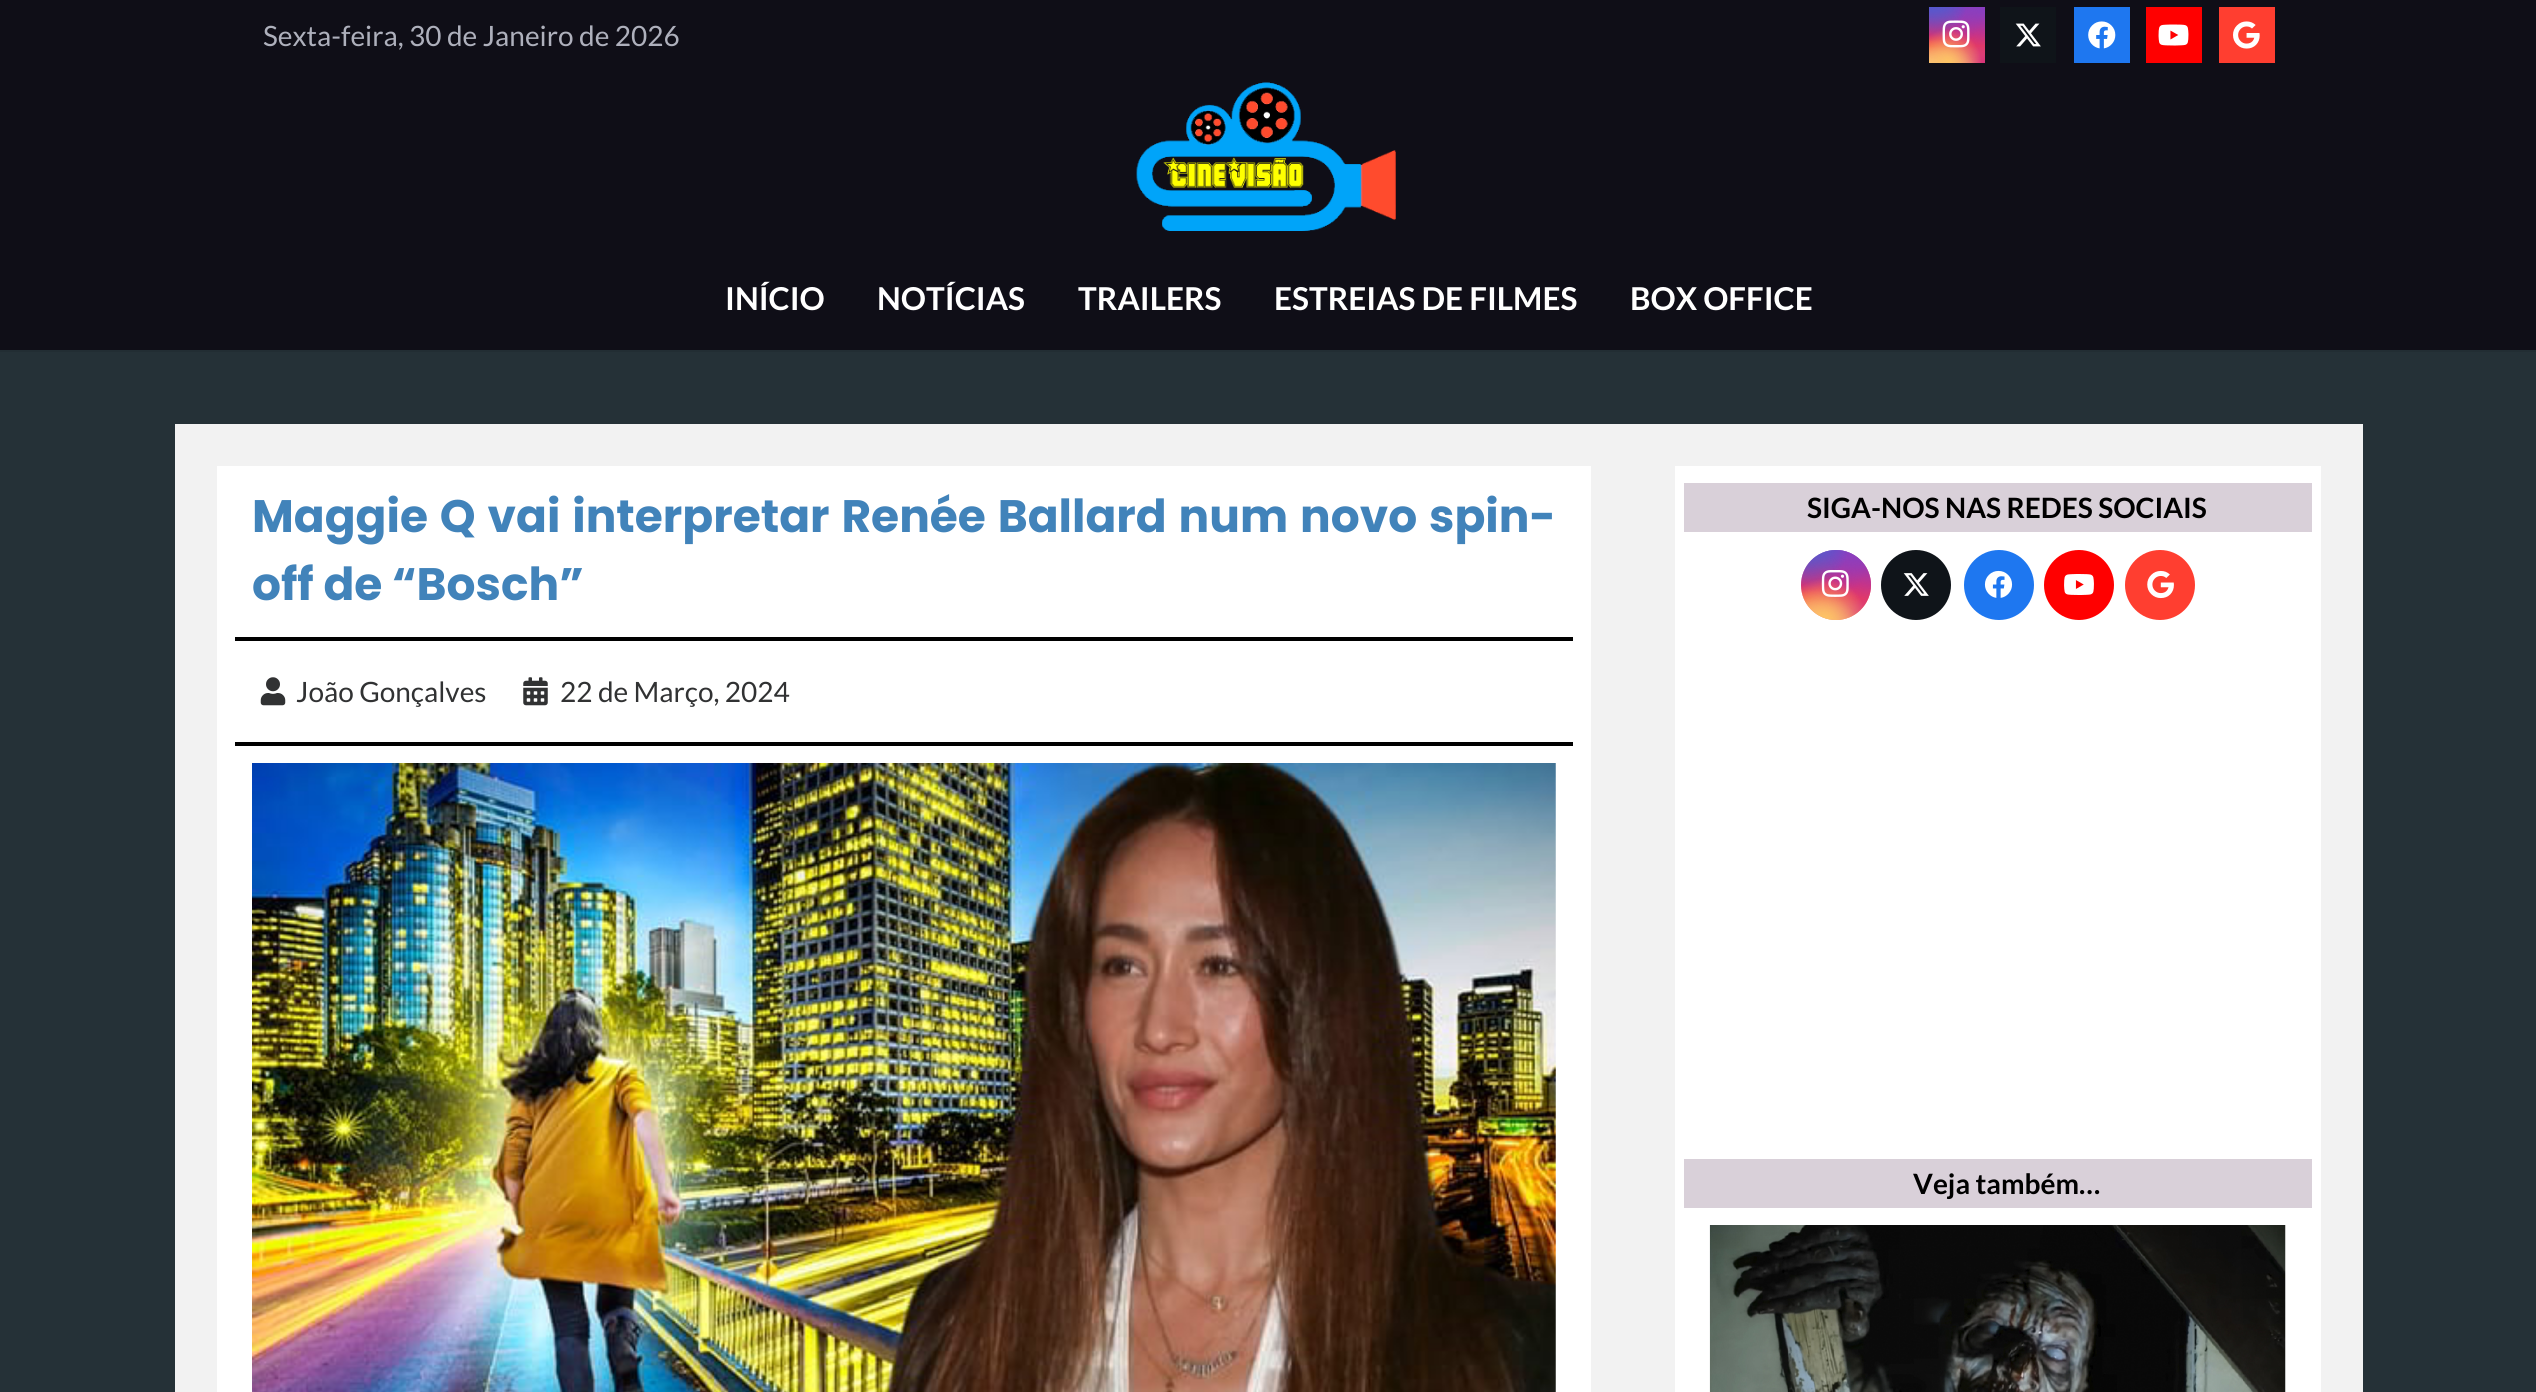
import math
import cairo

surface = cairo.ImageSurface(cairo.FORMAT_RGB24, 2536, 1392)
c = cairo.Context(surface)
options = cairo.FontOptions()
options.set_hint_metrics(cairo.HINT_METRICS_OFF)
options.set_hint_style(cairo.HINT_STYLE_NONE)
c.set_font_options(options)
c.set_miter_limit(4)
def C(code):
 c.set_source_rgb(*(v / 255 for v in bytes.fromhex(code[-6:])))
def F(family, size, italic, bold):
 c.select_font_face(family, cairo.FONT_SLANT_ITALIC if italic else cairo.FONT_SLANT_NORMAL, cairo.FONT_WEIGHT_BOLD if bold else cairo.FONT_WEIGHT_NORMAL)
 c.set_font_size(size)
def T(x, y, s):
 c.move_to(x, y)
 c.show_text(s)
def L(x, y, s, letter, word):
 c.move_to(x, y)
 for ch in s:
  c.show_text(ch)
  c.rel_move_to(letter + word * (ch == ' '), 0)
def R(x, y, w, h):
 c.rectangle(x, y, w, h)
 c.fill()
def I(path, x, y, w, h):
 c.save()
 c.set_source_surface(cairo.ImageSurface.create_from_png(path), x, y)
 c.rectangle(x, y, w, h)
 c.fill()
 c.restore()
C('253137')
c.paint()
C('0f0e17')
R(0,0,2536,350)
F('Lato',28,0,0)
C('aeb0bc')
T(263,46,'Sexta-feira, 30 de Janeiro de 2026')
gradient = cairo.LinearGradient(1957,7,1957,63)
gradient.add_color_stop_rgba(0,0.396,0.349,0.792,1)
gradient.add_color_stop_rgba(.3,0.737,0.192,0.561,1)
gradient.add_color_stop_rgba(.5,0.894,0.18,0.4,1)
gradient.add_color_stop_rgba(.7,0.98,0.325,0.196,1)
gradient.add_color_stop_rgba(1,1,0.863,0.502,1)
c.set_source(gradient)
R(1929,7,56,56)
gradient = cairo.RadialGradient(1985,63,0,1985,63,79)
gradient.add_color_stop_rgba(0,0.851,0.192,0.478,1)
gradient.add_color_stop_rgba(1,0.851,0.192,0.478,0)
c.set_source(gradient)
R(1929,7,56,56)
gradient = cairo.RadialGradient(0,0,0,0,0,1)
gradient.set_matrix(cairo.Matrix(1 / 48, 0, 0, 1 / 95, -1 * 1962 / 48, -1 * -4.2 / 95))
gradient.add_color_stop_rgba(0,0.537,0.239,0.761,1)
gradient.add_color_stop_rgba(.5,0.537,0.239,0.761,0)
c.set_source(gradient)
R(1942,7,41,35)
gradient = cairo.RadialGradient(1985,7,0,1985,7,79)
gradient.add_color_stop_rgba(0,0.537,0.239,0.761,1)
gradient.add_color_stop_rgba(.5,0.537,0.239,0.761,0)
c.set_source(gradient)
R(1950,7,35,38)
gradient = cairo.RadialGradient(0,0,0,0,0,1)
gradient.set_matrix(cairo.Matrix(1 / 63, 0, 0, 1 / 119, -1 * 1940 / 63, -1 * -21 / 119))
gradient.add_color_stop_rgba(0,0.322,0.345,0.812,1)
gradient.add_color_stop_rgba(.5,0.322,0.345,0.812,0)
c.set_source(gradient)
R(1929,7,37,30)
gradient = cairo.RadialGradient(0,0,0,0,0,1)
gradient.set_matrix(cairo.Matrix(1 / 79, 0, 0, 1 / 99, -1 * 1929 / 79, -1 * -7 / 99))
gradient.add_color_stop_rgba(0,0.322,0.345,0.812,1)
gradient.add_color_stop_rgba(.5,0.322,0.345,0.812,0)
c.set_source(gradient)
R(1929,7,36,34)
gradient = cairo.RadialGradient(1934,85,0,1934,85,93)
gradient.add_color_stop_rgba(0,0.996,0.855,0.494,1)
gradient.add_color_stop_rgba(.5,0.996,0.855,0.494,0)
c.set_source(gradient)
R(1929,40,45,23)
gradient = cairo.RadialGradient(1948,63,0,1948,63,67)
gradient.add_color_stop_rgba(0,0.996,0.773,0.392,1)
gradient.add_color_stop_rgba(.5,0.996,0.773,0.392,0)
c.set_source(gradient)
R(1929,30,52,33)
I('1.png',1942,20,28,28)
C('0f1419')
R(2000,7,56,56)
I('2.png',2015,23,26,24)
C('1e77f0')
R(2074,7,56,56)
I('3.png',2088,21,28,28)
C('ff0000')
R(2146,7,56,56)
I('4.png',2158,24,31,22)
C('ff3e30')
R(2219,7,56,56)
I('5.png',2233,21,27,28)
I('6.png',1136,82,260,149)
C('222d33')
c.new_path()
c.move_to(0,350)
c.line_to(0,352)
c.line_to(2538,352)
c.line_to(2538,247)
c.line_to(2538,350)
c.close_path()
c.fill()
F('Lato',31.5,0,1)
C('ffffff')
T(725,310,'INÍCIO')
T(877,310,'NOTÍCIAS')
T(1078,310,'TRAILERS')
T(1274,310,'ESTREIAS DE FILMES')
T(1630,310,'BOX OFFICE')
C('f2f2f2')
R(175,424,2188,968)
C('ffffff')
R(217,466,1374,926)
F('Poppins',45.5,0,1)
C('4183ba')
L(252,532,'Maggie Q vai interpretar Renée Ballard num novo spin-',0,2.25)
T(252,600,'off de “Bosch”')
C('000000')
R(235,637,1338,4)
R(235,742,1338,4)
I('7.png',260,677,26,29)
F('Lato',28,0,0)
C('313233')
T(296,702,'João Gonçalves')
I('8.png',523,677,25,29)
T(560,702,'22 de Março, 2024')
I('9.png',252,763,1304,629)
C('ffffff')
R(1675,466,646,926)
C('d9d0d9')
R(1684,483,628,49)
F('Lato',28,0,1)
C('000000')
T(1807,518,'SIGA-NOS NAS REDES SOCIAIS')
gradient = cairo.LinearGradient(1836,550,1836,620)
gradient.add_color_stop_rgba(0,0.396,0.349,0.792,1)
gradient.add_color_stop_rgba(.3,0.737,0.192,0.561,1)
gradient.add_color_stop_rgba(.5,0.894,0.18,0.4,1)
gradient.add_color_stop_rgba(.7,0.98,0.325,0.196,1)
gradient.add_color_stop_rgba(1,1,0.863,0.502,1)
c.set_source(gradient)
c.new_path()
c.arc(1836,585,35,0,2 * math.pi)
c.fill()
gradient = cairo.RadialGradient(1871,620,0,1871,620,99)
gradient.add_color_stop_rgba(0,0.851,0.192,0.478,1)
gradient.add_color_stop_rgba(1,0.851,0.192,0.478,0)
c.set_source(gradient)
c.arc(1836,585,35,0,2 * math.pi)
c.fill()
gradient = cairo.RadialGradient(0,0,0,0,0,1)
gradient.set_matrix(cairo.Matrix(1 / 59, 0, 0, 1 / 119, -1 * 1843 / 59, -1 * 536 / 119))
gradient.add_color_stop_rgba(0,0.537,0.239,0.761,1)
gradient.add_color_stop_rgba(.5,0.537,0.239,0.761,0)
c.set_source(gradient)
c.arc(1836,585,35,0,2 * math.pi)
c.fill()
gradient = cairo.RadialGradient(1871,550,0,1871,550,99)
gradient.add_color_stop_rgba(0,0.537,0.239,0.761,1)
gradient.add_color_stop_rgba(.5,0.537,0.239,0.761,0)
c.set_source(gradient)
c.arc(1836,585,35,0,2 * math.pi)
c.fill()
gradient = cairo.RadialGradient(0,0,0,0,0,1)
gradient.set_matrix(cairo.Matrix(1 / 79, 0, 0, 1 / 148, -1 * 1815 / 79, -1 * 515 / 148))
gradient.add_color_stop_rgba(0,0.322,0.345,0.812,1)
gradient.add_color_stop_rgba(.5,0.322,0.345,0.812,0)
c.set_source(gradient)
c.arc(1836,585,35,0,2 * math.pi)
c.fill()
gradient = cairo.RadialGradient(0,0,0,0,0,1)
gradient.set_matrix(cairo.Matrix(1 / 99, 0, 0, 1 / 124, -1 * 1801 / 99, -1 * 532 / 124))
gradient.add_color_stop_rgba(0,0.322,0.345,0.812,1)
gradient.add_color_stop_rgba(.5,0.322,0.345,0.812,0)
c.set_source(gradient)
c.arc(1836,585,35,0,2 * math.pi)
c.fill()
gradient = cairo.RadialGradient(1808,648,0,1808,648,117)
gradient.add_color_stop_rgba(0,0.996,0.855,0.494,1)
gradient.add_color_stop_rgba(.5,0.996,0.855,0.494,0)
c.set_source(gradient)
c.arc(1836,585,35,0,2 * math.pi)
c.fill()
gradient = cairo.RadialGradient(1825,620,0,1825,620,83)
gradient.add_color_stop_rgba(0,0.996,0.773,0.392,1)
gradient.add_color_stop_rgba(.5,0.996,0.773,0.392,0)
c.set_source(gradient)
c.arc(1836,585,35,0,2 * math.pi)
c.fill()
I('10.png',1821,570,28,27)
C('0f1419')
c.arc(1916,585,35,0,2 * math.pi)
c.fill()
I('11.png',1903,573,26,23)
C('1e77f0')
c.arc(1999,585,35,0,2 * math.pi)
c.fill()
I('12.png',1984,570,29,28)
C('ff0000')
c.arc(2079,585,35,0,2 * math.pi)
c.fill()
I('13.png',2064,574,30,21)
C('ff3e30')
c.arc(2160,585,35,0,2 * math.pi)
c.fill()
I('14.png',2147,570,27,29)
C('d9d0d9')
R(1684,1159,628,49)
C('000000')
T(1913,1194,'Veja também…')
I('15.png',1709,1225,577,167)
surface.write_to_png('o.png')
